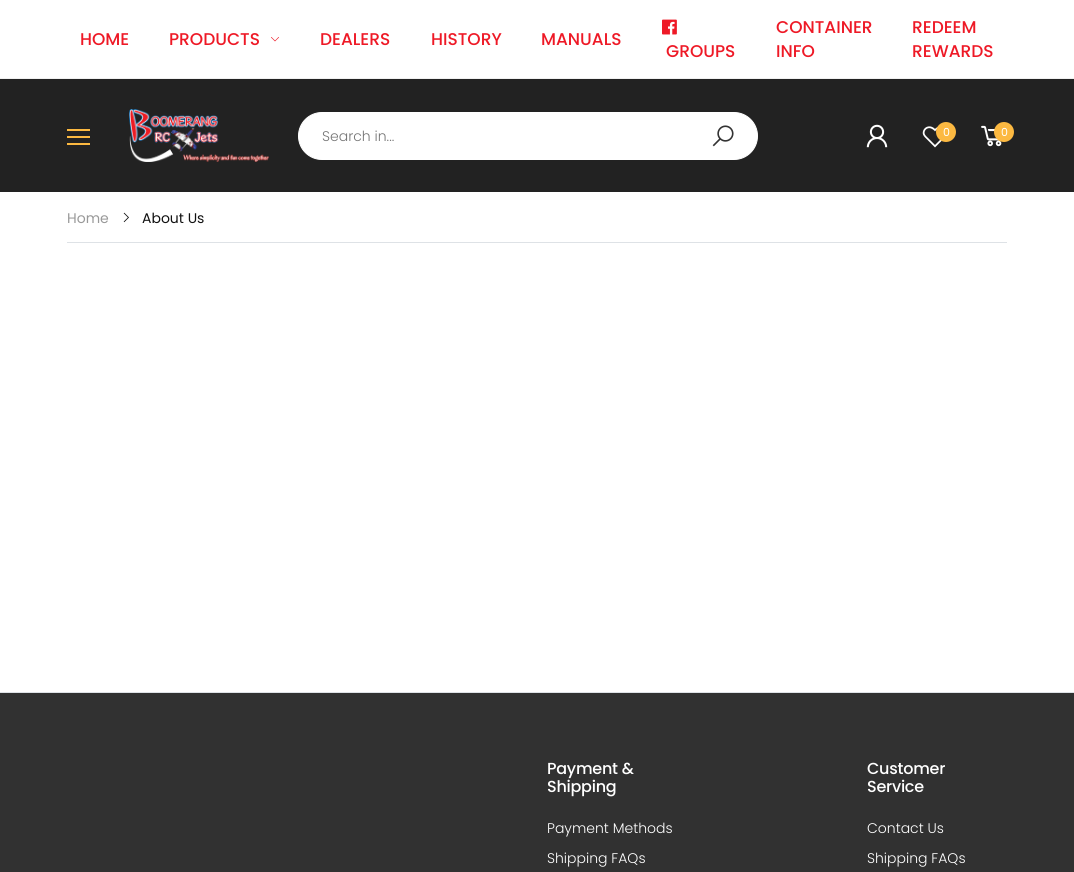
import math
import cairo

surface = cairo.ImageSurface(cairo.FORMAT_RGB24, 1074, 872)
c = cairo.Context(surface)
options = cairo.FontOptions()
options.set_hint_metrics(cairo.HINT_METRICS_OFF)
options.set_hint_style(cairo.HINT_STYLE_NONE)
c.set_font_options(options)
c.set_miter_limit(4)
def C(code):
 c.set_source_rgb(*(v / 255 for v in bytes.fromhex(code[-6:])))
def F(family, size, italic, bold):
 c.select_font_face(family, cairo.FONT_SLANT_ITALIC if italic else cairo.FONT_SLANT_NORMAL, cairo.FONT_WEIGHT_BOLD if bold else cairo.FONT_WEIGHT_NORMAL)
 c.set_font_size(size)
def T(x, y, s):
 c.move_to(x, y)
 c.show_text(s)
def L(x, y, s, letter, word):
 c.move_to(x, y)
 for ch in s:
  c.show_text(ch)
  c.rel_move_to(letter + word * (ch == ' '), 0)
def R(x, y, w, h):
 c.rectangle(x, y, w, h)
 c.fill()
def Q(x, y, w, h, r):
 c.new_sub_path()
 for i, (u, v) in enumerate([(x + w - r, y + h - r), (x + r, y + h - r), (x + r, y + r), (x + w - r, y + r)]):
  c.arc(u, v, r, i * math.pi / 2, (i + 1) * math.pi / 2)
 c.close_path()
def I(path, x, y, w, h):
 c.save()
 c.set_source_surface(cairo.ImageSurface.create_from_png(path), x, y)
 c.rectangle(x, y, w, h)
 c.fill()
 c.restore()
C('ffffff')
c.paint()
C('222222')
R(0,79,1074,113)
C('f0f0f0')
R(0,78,1074,1)
F('Poppins Medium',17,0,0)
C('ee1926')
T(80,45,'HOME')
T(169,45,'PRODUCTS')
I('1.png',271,37,8,5)
T(320,45,'DEALERS')
T(431,45,'HISTORY')
T(541,45,'MANUALS')
T(776,33,'CONTAINER')
T(776,57,'INFO')
T(912,33,'REDEEM')
T(912,57,'REWARDS')
I('2.png',662,19,15,16)
T(666,57,'GROUPS')
C('fcb941')
R(67,129,23,2)
R(67,136,23,2)
R(67,143,23,2)
I('3.png',129,109,140,53)
C('ffffff')
Q(298.5,112.5,459,47,23.5)
c.fill_preserve()
c.set_line_width(1)
c.stroke()
F('Poppins Light',14,0,0)
C('757575')
T(322,141,'Search in...')
I('4.png',712,125,22,22)
I('5.png',866,124,22,24)
I('6.png',922,126,20,22)
C('fcb941')
c.arc(946,132,10,0,2 * math.pi)
c.fill()
F('Poppins',11,0,0)
C('ffffff')
T(943,136,'0')
I('7.png',981,125,21,22)
C('fcb941')
c.arc(1004,132,10,0,2 * math.pi)
c.fill()
C('ffffff')
T(1001,136,'0')
C('dee2e6')
R(67,242,940,1)
F('Poppins',14,0,0)
C('999999')
T(67,223,'Home')
I('8.png',123,212,6,11)
C('111111')
T(142,223,'About Us')
C('313131')
R(0,693,1074,179)
C('dee2e6')
R(0,692,1074,1)
F('Poppins Medium',16,0,0)
C('ffffff')
L(547,774,'Payment &',-.25,0)
L(547,792,'Shipping',-.25,0)
F('Poppins Light',14,0,0)
T(547,833,'Payment Methods')
T(547,863,'Shipping FAQs')
F('Poppins Medium',16,0,0)
L(867,774,'Customer',-.25,0)
L(867,792,'Service',-.25,0)
F('Poppins Light',14,0,0)
T(867,833,'Contact Us')
T(867,863,'Shipping FAQs')
surface.write_to_png('o.png')
